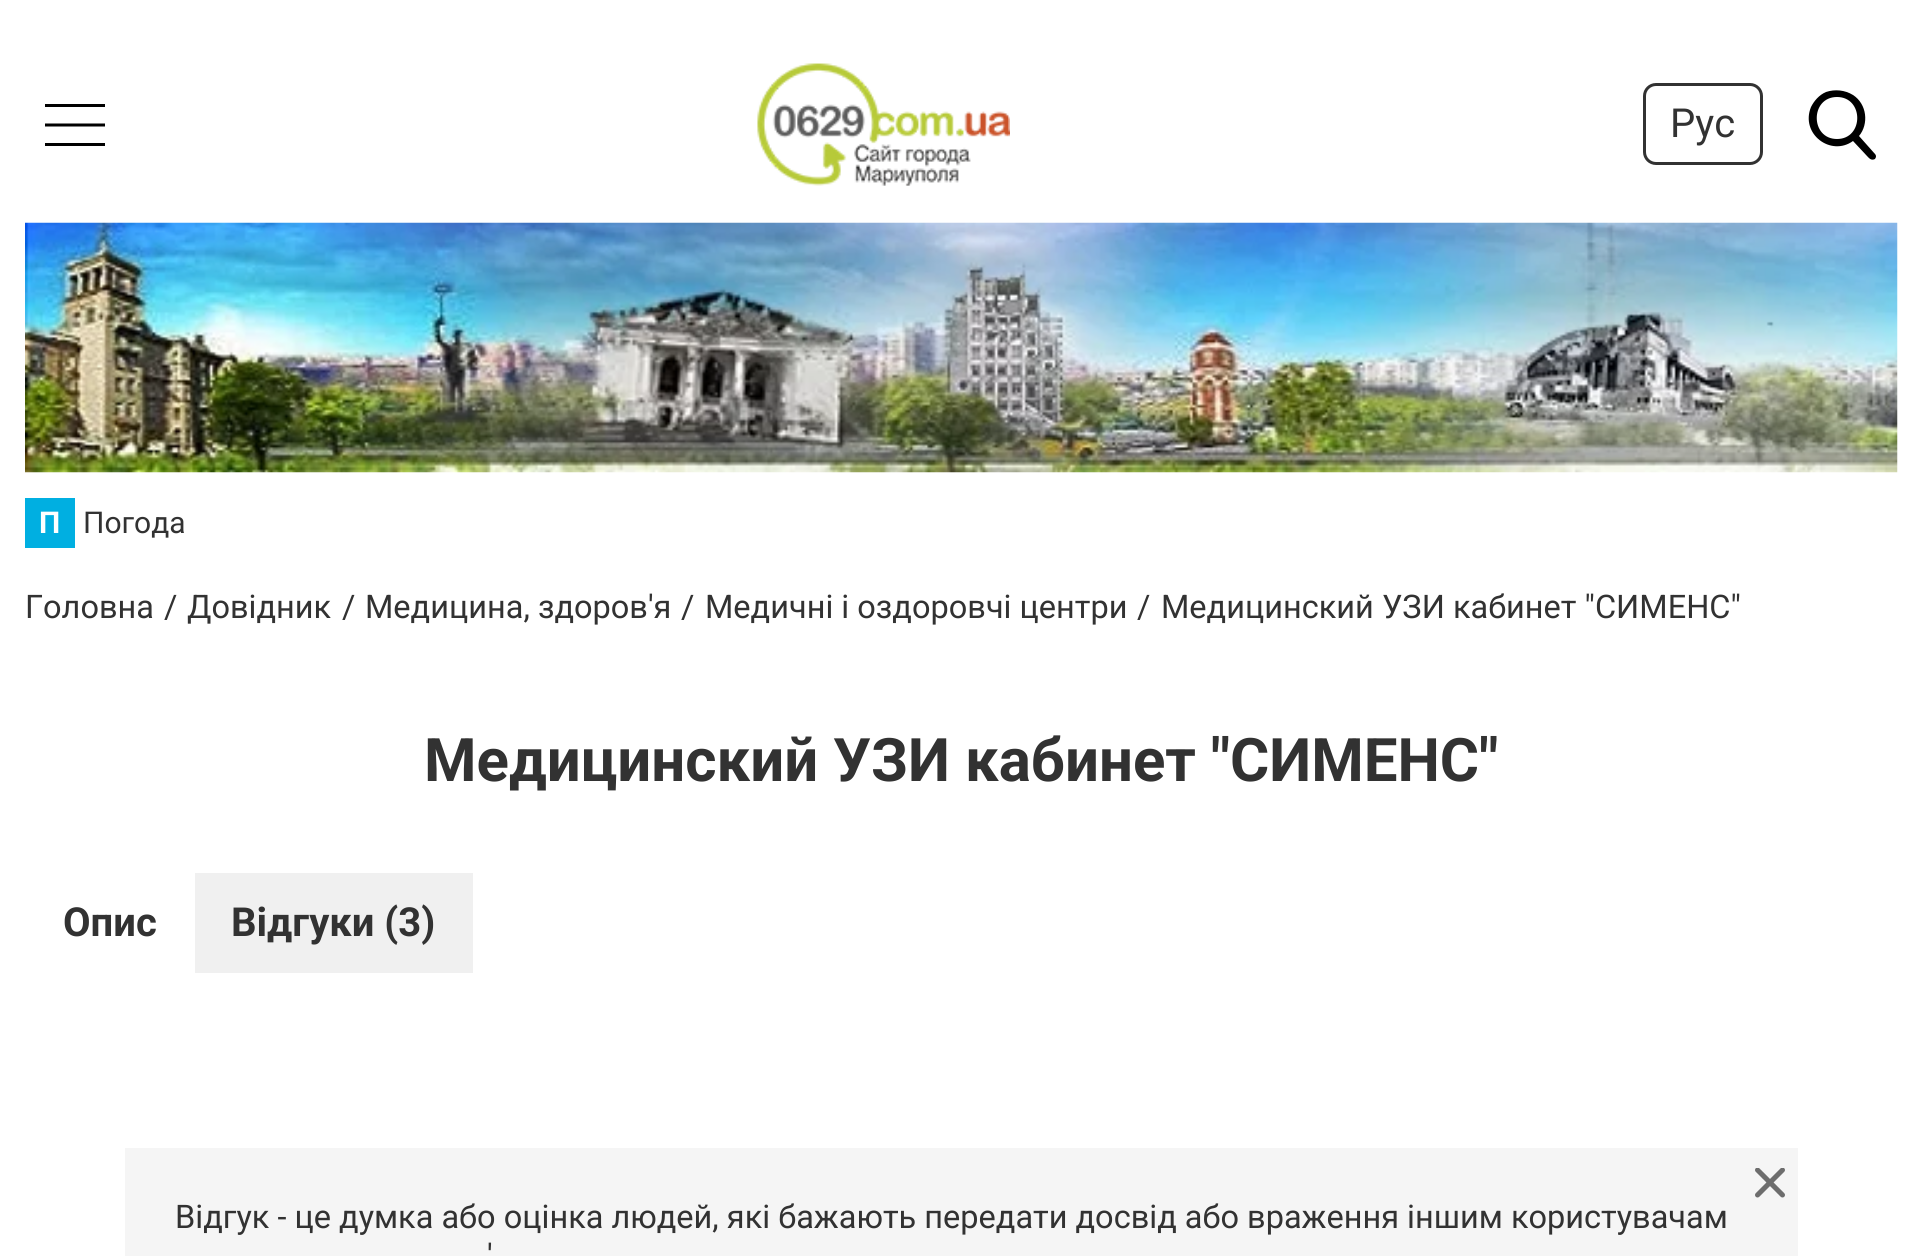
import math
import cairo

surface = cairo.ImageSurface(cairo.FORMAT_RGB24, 1922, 1256)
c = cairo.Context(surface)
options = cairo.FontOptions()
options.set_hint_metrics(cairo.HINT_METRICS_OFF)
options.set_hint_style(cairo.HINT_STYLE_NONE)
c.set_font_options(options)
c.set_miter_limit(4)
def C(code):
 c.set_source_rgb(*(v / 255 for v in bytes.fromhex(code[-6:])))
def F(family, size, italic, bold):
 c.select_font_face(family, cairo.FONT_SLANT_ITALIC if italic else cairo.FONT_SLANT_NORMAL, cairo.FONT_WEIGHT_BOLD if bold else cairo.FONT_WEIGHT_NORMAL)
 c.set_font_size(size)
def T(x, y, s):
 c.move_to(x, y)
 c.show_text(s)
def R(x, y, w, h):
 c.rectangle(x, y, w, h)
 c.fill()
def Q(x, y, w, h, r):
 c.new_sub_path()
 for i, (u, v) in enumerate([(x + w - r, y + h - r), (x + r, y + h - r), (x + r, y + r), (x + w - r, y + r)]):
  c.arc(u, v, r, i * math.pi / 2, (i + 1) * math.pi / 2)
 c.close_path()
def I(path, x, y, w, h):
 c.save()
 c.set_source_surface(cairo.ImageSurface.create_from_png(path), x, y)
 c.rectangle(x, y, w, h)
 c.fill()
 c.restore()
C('ffffff')
c.paint()
C('000000')
R(45,104,60,3)
c.new_path()
c.move_to(45,125)
c.line_to(105,125)
c.set_line_width(3)
c.stroke()
R(45,143,60,3)
I('1.png',757,63,253,123)
Q(1644.5,84.5,117,79,11.5)
C('323232')
c.stroke()
F('Roboto',40,0,0)
T(1670,137,'Рус')
C('000000')
c.new_path()
c.move_to(1875,154)
c.line_to(1859,136)
c.curve_to(1869,124,1867,104,1853,95)
c.curve_to(1845,90,1835,89,1826,92)
c.curve_to(1819,95,1814,101,1811,107)
c.curve_to(1800,134,1831,157,1853,141)
c.line_to(1867,156)
c.curve_to(1869,158,1871,161,1875,159)
c.line_to(1876,157)
c.curve_to(1876,156,1876,155,1875,154)
c.close_path()
c.move_to(1837,97)
c.curve_to(1864,97,1864,139,1837,139)
c.curve_to(1810,139,1810,97,1837,97)
c.close_path()
c.fill()
I('2.png',25,222,1873,251)
C('00afe1')
R(25,498,50,50)
F('Roboto',30,0,1)
C('ffffff')
T(39,533,'П')
F('Roboto',30,0,0)
C('323232')
T(83,533,'Погода')
F('Roboto',32.5,0,0)
T(25,618,'Головна')
T(164,618,'/')
T(187,618,'Довідник')
T(342,618,'/')
T(365,618,'Медицина, здоров\'я')
T(681,618,'/')
T(705,618,'Медичні і оздоровчі центри')
T(1137,618,'/')
T(1161,618,'Медицинский УЗИ кабинет "СИМЕНС"')
F('Roboto',60,0,1)
T(424,781,'Медицинский УЗИ кабинет "СИМЕНС"')
F('Roboto',40,0,1)
T(63,936,'Опис')
C('f0f0f0')
R(195,873,278,100)
C('323232')
T(231,936,'Відгуки (3)')
C('f5f5f5')
R(125,1148,1673,108)
I('3.png',1755,1168,30,30)
F('Roboto',32.5,0,0)
C('323232')
T(175,1228,'Відгук - це думка або оцінка людей, які бажають передати досвід або враження іншим користувачам')
T(487,1267,'\'')
surface.write_to_png('o.png')
